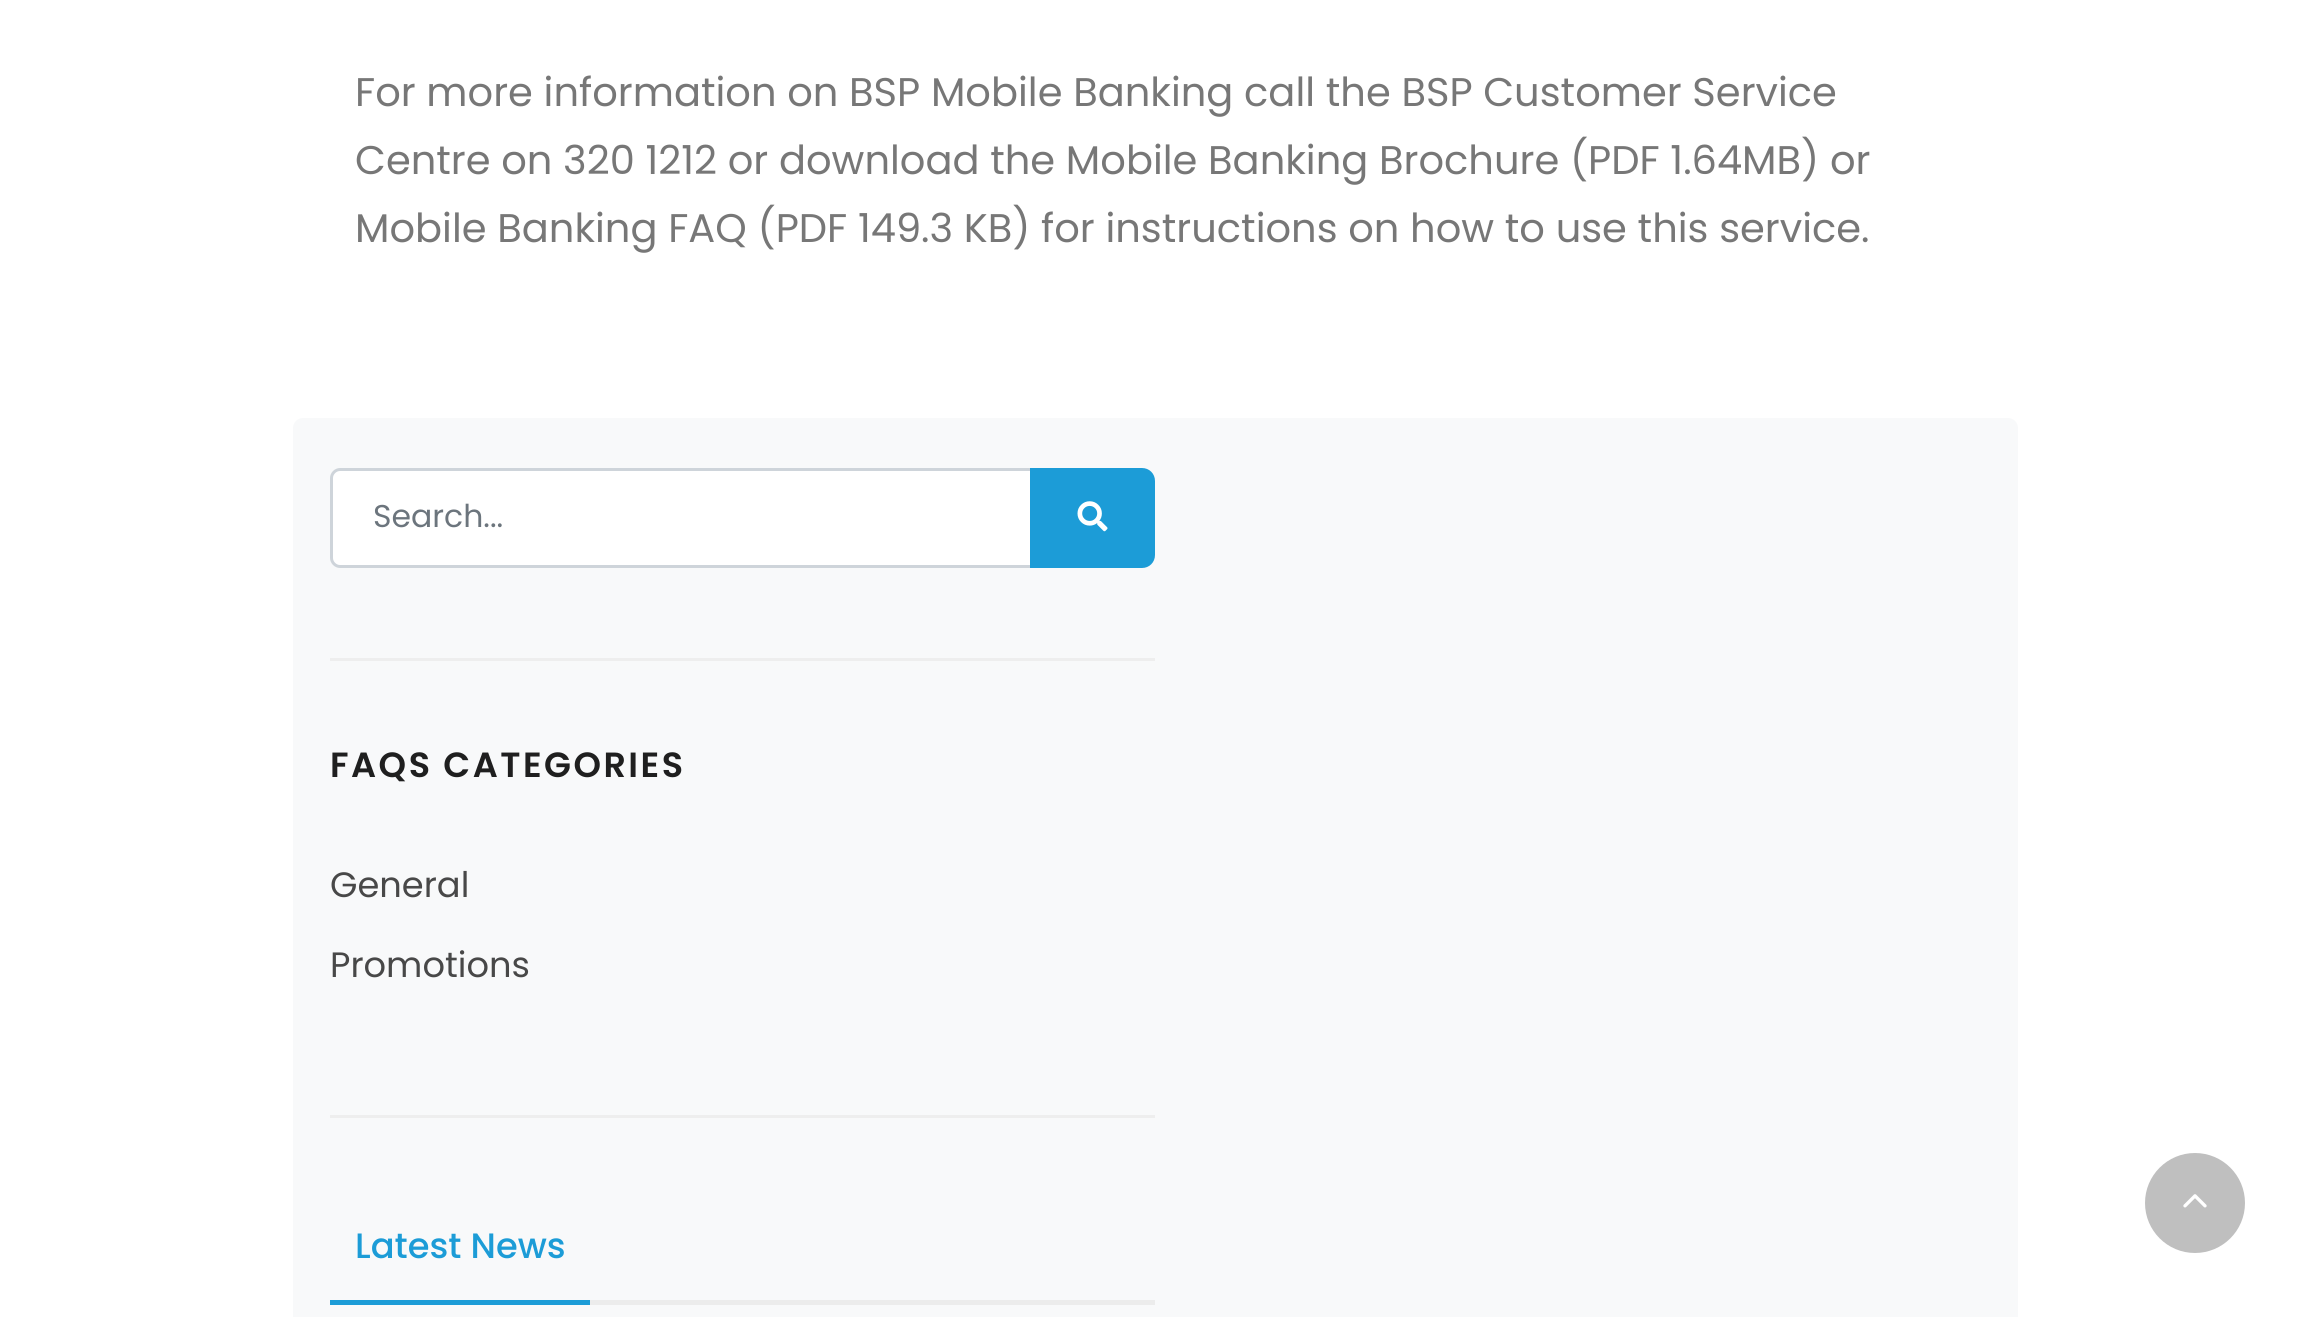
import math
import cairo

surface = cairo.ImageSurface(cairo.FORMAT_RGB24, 2308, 1317)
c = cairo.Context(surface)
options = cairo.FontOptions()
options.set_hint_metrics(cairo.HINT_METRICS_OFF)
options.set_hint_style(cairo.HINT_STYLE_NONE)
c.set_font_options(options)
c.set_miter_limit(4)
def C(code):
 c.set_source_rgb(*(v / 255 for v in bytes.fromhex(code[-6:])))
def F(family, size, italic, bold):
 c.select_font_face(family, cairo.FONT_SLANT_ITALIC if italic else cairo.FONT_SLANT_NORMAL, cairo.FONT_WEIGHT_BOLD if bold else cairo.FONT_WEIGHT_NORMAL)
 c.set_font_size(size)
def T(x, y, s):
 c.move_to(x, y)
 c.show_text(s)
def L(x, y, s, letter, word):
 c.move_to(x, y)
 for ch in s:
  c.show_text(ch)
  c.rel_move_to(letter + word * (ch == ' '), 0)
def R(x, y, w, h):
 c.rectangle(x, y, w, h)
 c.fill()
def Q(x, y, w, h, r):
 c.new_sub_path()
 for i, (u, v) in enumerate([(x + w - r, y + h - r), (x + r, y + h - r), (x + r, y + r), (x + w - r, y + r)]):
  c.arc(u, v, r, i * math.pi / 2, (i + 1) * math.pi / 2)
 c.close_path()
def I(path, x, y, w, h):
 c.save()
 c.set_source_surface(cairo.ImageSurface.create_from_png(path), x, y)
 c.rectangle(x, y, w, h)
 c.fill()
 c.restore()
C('ffffff')
c.paint()
F('Poppins',40,0,0)
C('777777')
T(355,106,'For more information on BSP Mobile Banking call the BSP Customer Service')
T(355,174,'Centre on 320 1212 or download the Mobile Banking Brochure (PDF 1.64MB) or')
T(355,242,'Mobile Banking FAQ (PDF 149.3 KB) for instructions on how to use this service.')
C('f8f9fa')
Q(293,418,1725,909,10)
c.fill()
C('eeeeee')
R(330,658,825,3)
C('ffffff')
c.new_path()
c.move_to(339,470)
c.line_to(1040,470)
c.line_to(1040,565)
c.line_to(339,565)
c.curve_to(335.5,565,333,562.5,333,559)
c.line_to(333,476)
c.curve_to(333,472.5,335.5,470,339,470)
c.close_path()
c.fill()
c.new_path()
c.move_to(340,469.5)
c.line_to(1041.5,469.5)
c.line_to(1041.5,566.5)
c.line_to(340,566.5)
c.curve_to(335.5,566.5,331.5,562.5,331.5,558)
c.line_to(331.5,478)
c.curve_to(331.5,473.5,335.5,469.5,340,469.5)
c.close_path()
C('ced4da')
c.set_line_width(3)
c.stroke()
F('Poppins',31.5,0,0)
C('6c757d')
T(373,527,'Search...')
C('1c9cd7')
c.new_path()
c.move_to(1031.5,469.5)
c.line_to(1142,469.5)
c.curve_to(1148.5,469.5,1153.5,474.5,1153.5,481)
c.line_to(1153.5,555)
c.curve_to(1153.5,561.5,1148.5,566.5,1142,566.5)
c.line_to(1031.5,566.5)
c.close_path()
c.fill_preserve()
c.stroke()
I('1.png',1077,501,31,31)
C('eeeeee')
R(330,1115,825,3)
F('Poppins SemiBold',35,0,0)
C('1f1f1f')
L(330,777,'FAQS CATEGORIES',2.5,0)
F('Poppins',35.25,0,0)
C('484848')
T(330,897,'General')
T(330,977,'Promotions')
C('ececec')
R(590,1300,565,5)
C('1c9cd7')
R(330,1300,260,5)
F('Poppins Medium',35.25,0,0)
T(355,1258,'Latest News')
C('bfbfbf')
c.new_path()
c.arc(2195,1203,50,0,2 * math.pi)
c.fill()
I('2.png',2183,1194,24,14)
surface.write_to_png('o.png')
